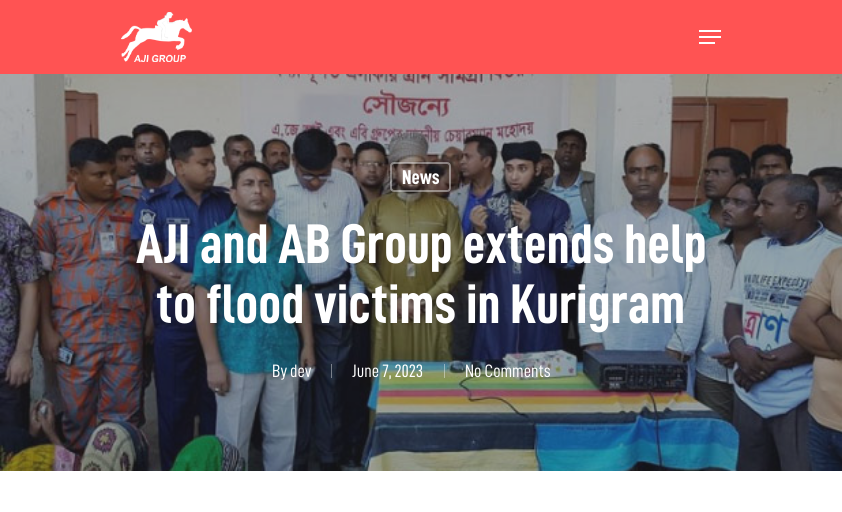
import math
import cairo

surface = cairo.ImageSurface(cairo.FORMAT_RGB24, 842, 512)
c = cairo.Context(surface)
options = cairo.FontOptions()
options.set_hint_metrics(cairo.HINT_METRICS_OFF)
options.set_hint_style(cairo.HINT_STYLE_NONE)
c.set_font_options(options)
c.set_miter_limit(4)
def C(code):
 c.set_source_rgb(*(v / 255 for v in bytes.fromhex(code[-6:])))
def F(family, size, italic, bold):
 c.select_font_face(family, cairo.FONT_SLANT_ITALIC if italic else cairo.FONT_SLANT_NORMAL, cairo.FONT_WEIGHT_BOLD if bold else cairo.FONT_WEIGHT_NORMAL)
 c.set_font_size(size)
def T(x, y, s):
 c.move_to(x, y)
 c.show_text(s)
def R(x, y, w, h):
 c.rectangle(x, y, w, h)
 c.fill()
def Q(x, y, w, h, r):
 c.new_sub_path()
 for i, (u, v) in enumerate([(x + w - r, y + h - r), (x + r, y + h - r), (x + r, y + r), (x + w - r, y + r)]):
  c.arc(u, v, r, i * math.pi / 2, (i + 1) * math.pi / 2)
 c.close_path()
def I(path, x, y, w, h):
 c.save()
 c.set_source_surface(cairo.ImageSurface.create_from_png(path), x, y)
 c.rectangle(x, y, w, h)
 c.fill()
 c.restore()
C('ffffff')
c.paint()
C('ff5353')
R(0,0,842,74)
I('1.png',121,12,71,50)
C('ffffff')
R(699,30,22,2)
R(699,42,16,2)
R(699,36,22,2)
I('2.png',0,74,842,397)
Q(391,163,59,28,3)
c.set_source_rgba(1,1,1,0.4)
c.stroke()
F('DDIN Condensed',20,0,1)
C('ffffff')
T(402,184,'News')
F('DDIN Condensed',56,0,1)
T(136,263,'AJI and AB Group extends help')
T(156,323,'to flood victims in Kurigram')
F('DDIN Condensed',18,0,0)
T(272,377,'By')
T(290,377,'dev')
c.set_source_rgba(1,1,1,0.4)
R(331,364,1,14)
C('ffffff')
T(352,377,'June 7, 2023')
c.set_source_rgba(1,1,1,0.4)
R(444,364,1,14)
C('ffffff')
T(465,377,'No Comments')
surface.write_to_png('o.png')
